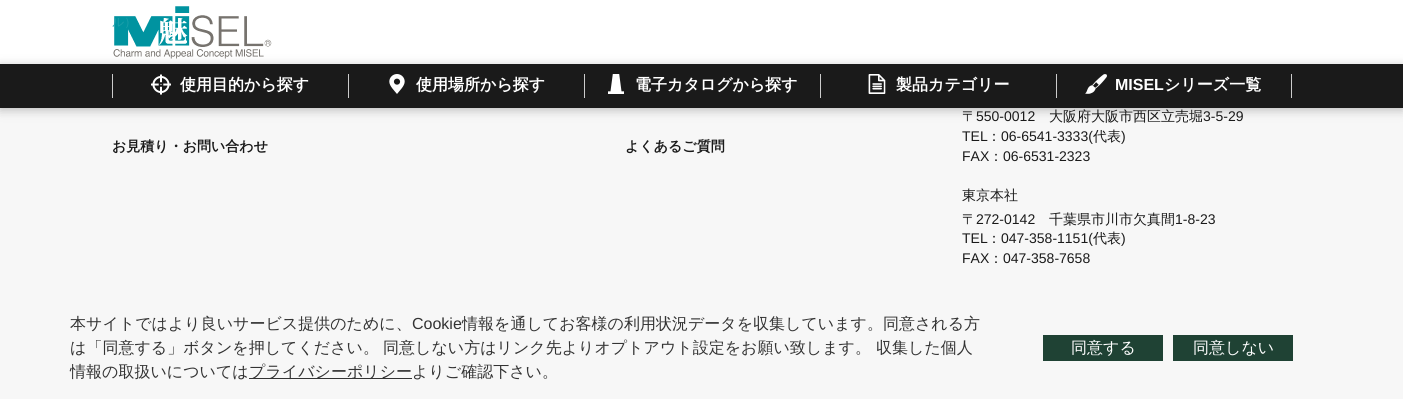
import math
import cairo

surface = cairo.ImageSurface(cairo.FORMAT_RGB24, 1403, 399)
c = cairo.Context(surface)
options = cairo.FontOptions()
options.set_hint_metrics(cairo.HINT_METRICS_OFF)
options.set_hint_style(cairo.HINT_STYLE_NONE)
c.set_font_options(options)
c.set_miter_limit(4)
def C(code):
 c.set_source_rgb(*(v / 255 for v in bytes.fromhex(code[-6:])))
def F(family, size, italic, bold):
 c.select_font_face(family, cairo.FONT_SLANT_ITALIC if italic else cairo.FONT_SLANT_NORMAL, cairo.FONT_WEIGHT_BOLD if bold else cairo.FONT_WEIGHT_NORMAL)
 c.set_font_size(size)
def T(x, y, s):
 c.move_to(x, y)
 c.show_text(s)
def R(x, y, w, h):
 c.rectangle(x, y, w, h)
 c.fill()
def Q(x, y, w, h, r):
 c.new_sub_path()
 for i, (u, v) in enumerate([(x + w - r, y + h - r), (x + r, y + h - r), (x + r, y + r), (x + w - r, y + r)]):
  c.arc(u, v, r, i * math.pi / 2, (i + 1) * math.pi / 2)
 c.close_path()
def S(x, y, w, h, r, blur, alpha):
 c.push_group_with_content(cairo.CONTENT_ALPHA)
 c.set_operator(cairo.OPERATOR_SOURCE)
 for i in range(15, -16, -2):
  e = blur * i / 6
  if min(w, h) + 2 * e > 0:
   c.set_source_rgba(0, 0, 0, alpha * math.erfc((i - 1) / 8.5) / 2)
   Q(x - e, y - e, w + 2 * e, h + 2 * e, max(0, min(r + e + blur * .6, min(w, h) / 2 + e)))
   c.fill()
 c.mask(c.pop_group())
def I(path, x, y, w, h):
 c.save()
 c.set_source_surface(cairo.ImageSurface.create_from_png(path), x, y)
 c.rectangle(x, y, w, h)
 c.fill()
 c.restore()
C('f7f7f7')
c.paint()
C('ffffff')
R(0,0,1403,64)
I('1.png',113,6,159,53)
F('WenQuanYi Zen Hei Medium',12,0,0)
C('1c9faa')
T(112,26,'ル）')
C('606060')
S(0,66,1403,44,0,5,.4)
C('1a1a1a')
R(0,64,1403,44)
C('cccccc')
R(112,74,1,24)
I('2.png',151,74,20,21)
F('WenQuanYi Zen Hei',16,0,1)
C('ffffff')
T(180,90,'使用目的から探す')
C('cccccc')
R(348,74,1,24)
I('3.png',389,74,16,20)
C('ffffff')
T(416,90,'使用場所から探す')
C('cccccc')
R(584,74,1,24)
I('4.png',608,74,16,20)
C('ffffff')
T(635,90,'電子カタログから探す')
C('cccccc')
R(820,74,1,24)
I('5.png',868,74,18,20)
C('ffffff')
T(896,90,'製品カテゴリー')
C('cccccc')
R(1056,74,1,24)
I('6.png',1085,74,22,20)
F('Liberation Sans',16,0,1)
C('ffffff')
T(1115,90,'MISEL')
F('WenQuanYi Zen Hei',16,0,1)
T(1164,90,'シリーズ一覧')
C('cccccc')
R(1291,74,1,24)
F('WenQuanYi Zen Hei',14,0,1)
C('1a1a1a')
T(112,151,'お見積り・お問い合わせ')
T(625,151,'よくあるご質問')
F('WenQuanYi Zen Hei Medium',14,0,0)
T(962,121,'〒')
F('Liberation Sans',14,0,0)
T(976,121,'550-0012')
F('WenQuanYi Zen Hei Medium',14,0,0)
T(1049,121,'大阪府大阪市西区立売堀')
F('Liberation Sans',14,0,0)
T(1203,121,'3-5-29')
T(962,141,'TEL')
F('WenQuanYi Zen Hei Medium',14,0,0)
T(987,141,'：')
F('Liberation Sans',14,0,0)
T(1001,141,'06-6541-3333(')
F('WenQuanYi Zen Hei Medium',14,0,0)
T(1093,141,'代表')
F('Liberation Sans',14,0,0)
T(1121,141,')')
T(962,161,'FAX')
F('WenQuanYi Zen Hei Medium',14,0,0)
T(989,161,'：')
F('Liberation Sans',14,0,0)
T(1003,161,'06-6531-2323')
F('WenQuanYi Zen Hei Medium',14,0,0)
T(962,200,'東京本社')
T(962,224,'〒')
F('Liberation Sans',14,0,0)
T(976,224,'272-0142')
F('WenQuanYi Zen Hei Medium',14,0,0)
T(1049,224,'千葉県市川市欠真間')
F('Liberation Sans',14,0,0)
T(1175,224,'1-8-23')
T(962,243,'TEL')
F('WenQuanYi Zen Hei Medium',14,0,0)
T(987,243,'：')
F('Liberation Sans',14,0,0)
T(1001,243,'047-358-1151(')
F('WenQuanYi Zen Hei Medium',14,0,0)
T(1093,243,'代表')
F('Liberation Sans',14,0,0)
T(1121,243,')')
T(962,263,'FAX')
F('WenQuanYi Zen Hei Medium',14,0,0)
T(989,263,'：')
F('Liberation Sans',14,0,0)
T(1003,263,'047-358-7658')
F('WenQuanYi Zen Hei Medium',16,0,0)
C('333333')
T(70,329,'本サイトではより良いサービス提供のために、')
F('Liberation Sans',16,0,0)
T(412,329,'Cookie')
F('WenQuanYi Zen Hei Medium',16,0,0)
T(462,329,'情報を通してお客様の利用状況データを収集しています。同意される方')
T(70,353,'は「同意する」ボタンを押してください。')
T(383,353,'同意しない方はリンク先よりオプトアウト設定をお願い致します。')
T(876,353,'収集した個人')
T(70,377,'情報の取扱いについては')
R(249,378,163,1)
T(249,377,'プライバシーポリシーよりご確認下さい。')
C('1f4234')
R(1043,335,120,26)
C('ffffff')
T(1071,353,'同意する')
C('1f4234')
R(1173,335,120,26)
C('ffffff')
T(1193,353,'同意しない')
surface.write_to_png('o.png')
